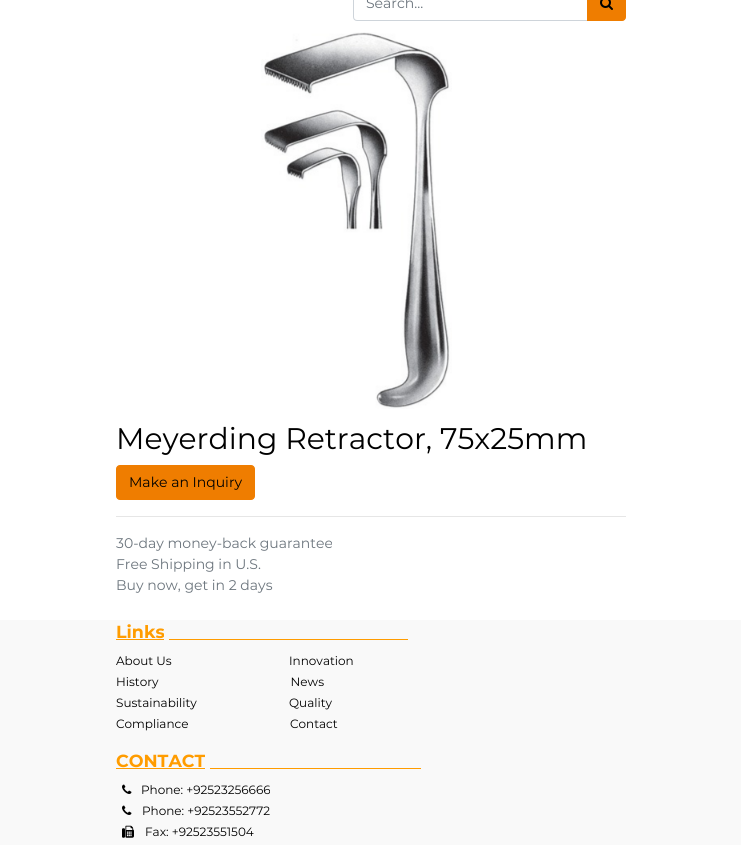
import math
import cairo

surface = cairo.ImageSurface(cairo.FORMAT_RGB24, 741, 845)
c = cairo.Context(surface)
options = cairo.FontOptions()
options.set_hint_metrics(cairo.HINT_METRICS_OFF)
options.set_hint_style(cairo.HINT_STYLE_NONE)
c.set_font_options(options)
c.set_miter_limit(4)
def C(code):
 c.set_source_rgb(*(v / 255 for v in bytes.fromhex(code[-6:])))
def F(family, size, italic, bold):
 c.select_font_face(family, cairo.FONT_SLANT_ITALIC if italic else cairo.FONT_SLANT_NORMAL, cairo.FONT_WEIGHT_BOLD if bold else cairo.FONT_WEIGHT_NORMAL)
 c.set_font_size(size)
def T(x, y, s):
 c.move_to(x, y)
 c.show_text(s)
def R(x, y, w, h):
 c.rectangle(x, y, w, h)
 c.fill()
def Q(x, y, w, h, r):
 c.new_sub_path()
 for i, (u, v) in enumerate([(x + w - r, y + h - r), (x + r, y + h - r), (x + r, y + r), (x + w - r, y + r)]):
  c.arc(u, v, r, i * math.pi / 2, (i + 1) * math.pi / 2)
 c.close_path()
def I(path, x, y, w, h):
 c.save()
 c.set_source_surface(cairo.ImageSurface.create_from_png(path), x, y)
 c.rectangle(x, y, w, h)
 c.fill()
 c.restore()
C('ffffff')
c.paint()
c.new_path()
c.move_to(357,-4.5)
c.line_to(587.5,-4.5)
c.line_to(587.5,20.5)
c.line_to(357,20.5)
c.curve_to(355,20.5,353.5,19,353.5,17)
c.line_to(353.5,-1)
c.curve_to(353.5,-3,355,-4.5,357,-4.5)
c.close_path()
C('ced4da')
c.set_line_width(1)
c.stroke()
F('Montserrat',14,0,0)
C('6c757d')
T(366,8,'Search...')
C('ef7d00')
c.new_path()
c.move_to(587.5,-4.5)
c.line_to(622,-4.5)
c.curve_to(624,-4.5,625.5,-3,625.5,-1)
c.line_to(625.5,17)
c.curve_to(625.5,19,624,20.5,622,20.5)
c.line_to(587.5,20.5)
c.close_path()
c.fill_preserve()
c.stroke()
I('1.png',600,0,13,10)
I('2.png',261,32,191,377)
F('Montserrat',29.8,0,0)
C('000000')
T(116,449,'Meyerding Retractor, 75x25mm')
C('ef7d00')
Q(116.5,465.5,138,34,3.5)
c.fill_preserve()
c.stroke()
F('Montserrat',14,0,0)
C('000000')
T(129,487,'Make an Inquiry')
C('e6e6e6')
R(116,516,510,1)
C('6c757d')
T(116,548,'30-day money-back guarantee')
T(116,569,'Free Shipping in U.S.')
T(116,590,'Buy now, get in 2 days')
C('f9f9f9')
R(0,620,741,225)
F('Montserrat',17.5,0,1)
C('ff9c00')
T(116,638,'Links')
R(116,639,48,1)
R(169,639,239,1)
F('Montserrat',12,0,0)
C('000000')
T(116,665,'About Us')
T(289,665,'Innovation')
T(116,686,'History                                          News')
T(116,707,'Sustainability')
T(289,707,'Quality')
T(116,728,'Compliance')
T(290,728,'Contact')
F('Montserrat',17.5,0,1)
C('ff9c00')
T(116,767,'CONTACT')
R(116,768,89,1)
R(210,768,211,1)
I('3.png',122,784,10,10)
F('Montserrat',12,0,0)
C('000000')
T(141,794,'Phone: +92523256666')
I('3.png',122,805,10,10)
T(142,815,'Phone: +92523552772')
I('4.png',122,825,12,13)
T(145,836,'Fax: +92523551504')
surface.write_to_png('o.png')
